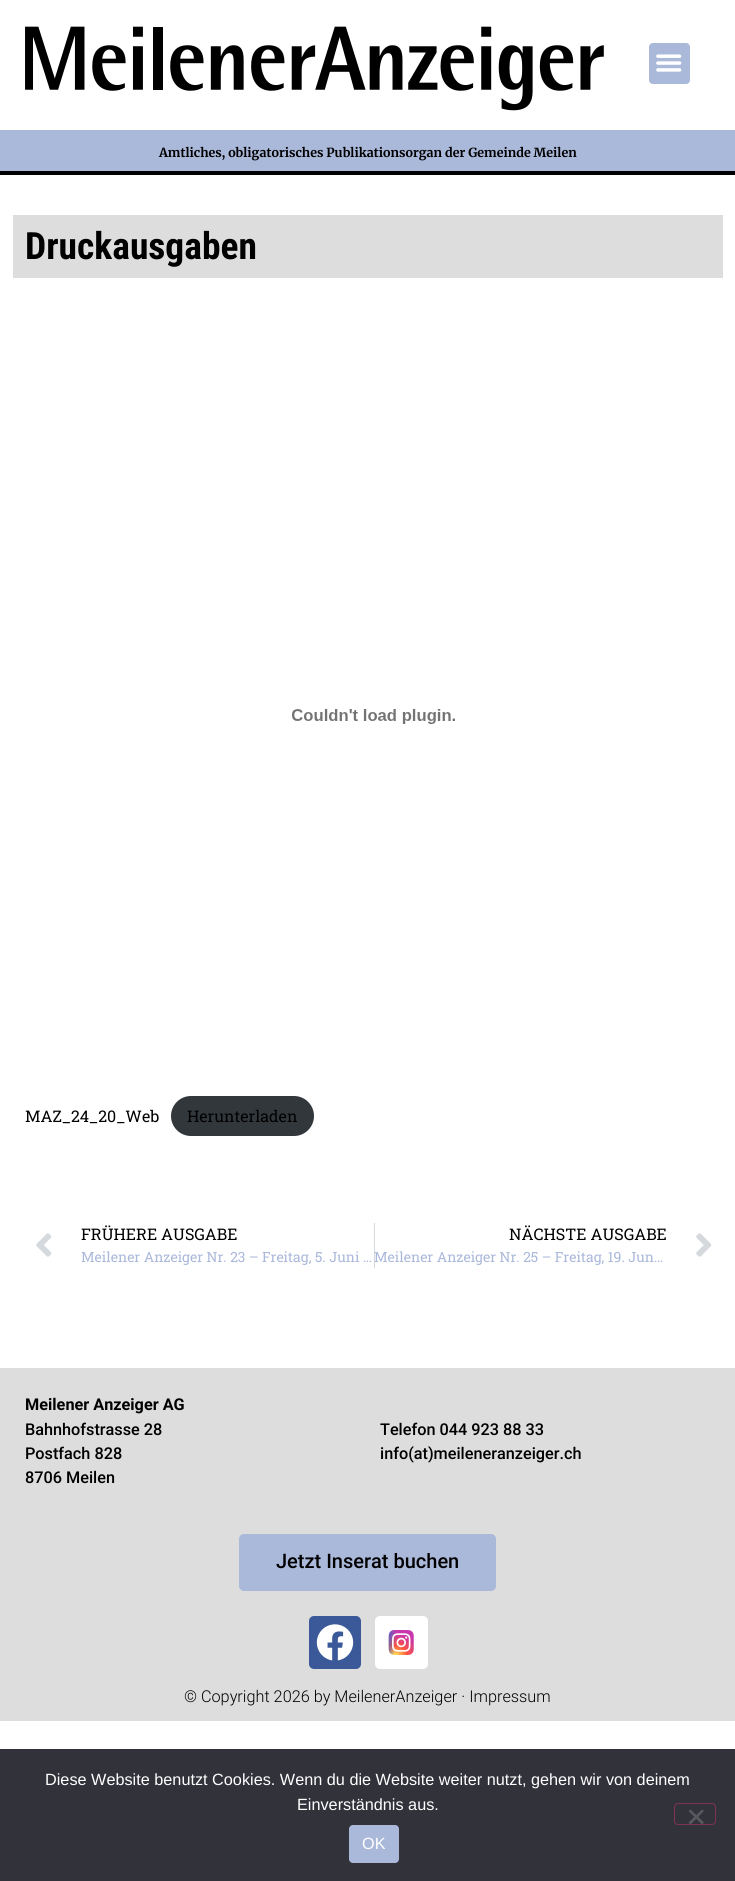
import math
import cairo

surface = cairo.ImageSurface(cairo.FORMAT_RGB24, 735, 1881)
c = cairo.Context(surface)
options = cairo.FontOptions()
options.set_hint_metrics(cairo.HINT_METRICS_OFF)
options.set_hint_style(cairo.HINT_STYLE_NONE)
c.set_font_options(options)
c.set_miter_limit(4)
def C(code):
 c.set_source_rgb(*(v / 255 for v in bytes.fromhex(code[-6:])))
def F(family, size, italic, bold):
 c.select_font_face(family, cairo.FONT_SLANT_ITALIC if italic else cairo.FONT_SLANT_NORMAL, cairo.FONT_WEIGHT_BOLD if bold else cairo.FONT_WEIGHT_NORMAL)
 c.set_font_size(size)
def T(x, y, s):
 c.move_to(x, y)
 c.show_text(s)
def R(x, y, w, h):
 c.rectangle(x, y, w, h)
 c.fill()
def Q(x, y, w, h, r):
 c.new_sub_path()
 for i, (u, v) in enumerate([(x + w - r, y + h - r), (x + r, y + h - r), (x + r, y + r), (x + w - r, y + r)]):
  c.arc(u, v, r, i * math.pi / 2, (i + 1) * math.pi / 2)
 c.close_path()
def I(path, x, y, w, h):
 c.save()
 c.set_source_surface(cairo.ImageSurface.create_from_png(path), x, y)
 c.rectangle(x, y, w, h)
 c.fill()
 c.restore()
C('ffffff')
c.paint()
I('1.png',25,26,579,85)
C('aab8da')
Q(649,43,41,41,4)
c.fill()
I('2.png',656,54,26,18)
R(0,130,735,41)
F('Merriweather',12.5,0,1)
C('000000')
T(159,157,'Amtliches, obligatorisches Publikationsorgan der Gemeinde Meilen')
R(0,171,735,4)
C('dddddd')
R(13,215,710,63)
F('Roboto Condensed',37.5,0,1)
C('000000')
T(25,259,'Druckausgaben')
I('3.png',292,709,163,15)
F('Roboto Slab',16,0,0)
T(25,1122,'MAZ_24_20_Web')
C('32373c')
Q(171,1096,143,40,20)
c.fill()
C('000000')
T(187,1122,'Herunterladen')
I('4.png',36,1233,16,24)
T(81,1240,'FRÜHERE AUSGABE')
F('Roboto Slab',14,0,0)
C('aab8da')
T(81,1262,'Meilener Anzeiger Nr. 23 – Freitag, 5. Juni …')
C('d5d8dc')
R(374,1223,1,45)
F('Roboto Slab',16,0,0)
C('000000')
T(509,1240,'NÄCHSTE AUSGABE')
F('Roboto Slab',14,0,0)
C('aab8da')
T(374,1262,'Meilener Anzeiger Nr. 25 – Freitag, 19. Jun…')
I('5.png',696,1233,16,24)
C('dddddd')
R(0,1368,735,353)
F('Roboto',16.25,0,1)
C('000000')
T(25,1410,'Meilener Anzeiger AG')
F('Roboto Medium',16.25,0,0)
T(25,1435,'Bahnhofstrasse 28')
T(25,1459,'Postfach 828')
T(25,1483,'8706 Meilen')
T(380,1435,'Telefon 044 923 88 33')
T(380,1459,'info(at)meileneranzeiger.ch')
C('aab8da')
Q(239,1534,257,57,5)
c.fill()
F('Roboto Medium',20,0,0)
C('000000')
T(276,1568,'Jetzt Inserat buchen')
C('3b5998')
Q(309,1616,52,53,5)
c.fill()
I('6.png',316,1624,38,37)
C('ffffff')
Q(375,1616,53,53,5)
c.fill()
I('7.png',388,1630,26,25)
F('Roboto Light',16.25,0,0)
C('000000')
T(184,1702,'© Copyright 2026 by MeilenerAnzeiger · Impressum')
C('32323a')
R(0,1749,735,132)
F('Liberation Sans',16.25,0,0)
C('ffffff')
T(45,1785,'Diese Website benutzt Cookies. Wenn du die Website weiter nutzt, gehen wir von deinem')
T(297,1810,'Einverständnis aus.')
Q(674.5,1803.5,41,21,3.5)
C('7f3350')
c.set_line_width(1)
c.stroke()
C('59595d')
c.new_path()
c.move_to(702,1809.5)
c.line_to(704,1811)
c.line_to(690.5,1824.5)
c.line_to(688.5,1822.5)
c.close_path()
c.fill()
c.new_path()
c.move_to(688.5,1811)
c.line_to(690.5,1809.5)
c.line_to(704,1822.5)
c.line_to(702,1824.5)
c.close_path()
c.fill()
C('aab8da')
Q(349,1825,50,38,4)
c.fill()
C('ffffff')
T(362,1849,'OK')
surface.write_to_png('o.png')
